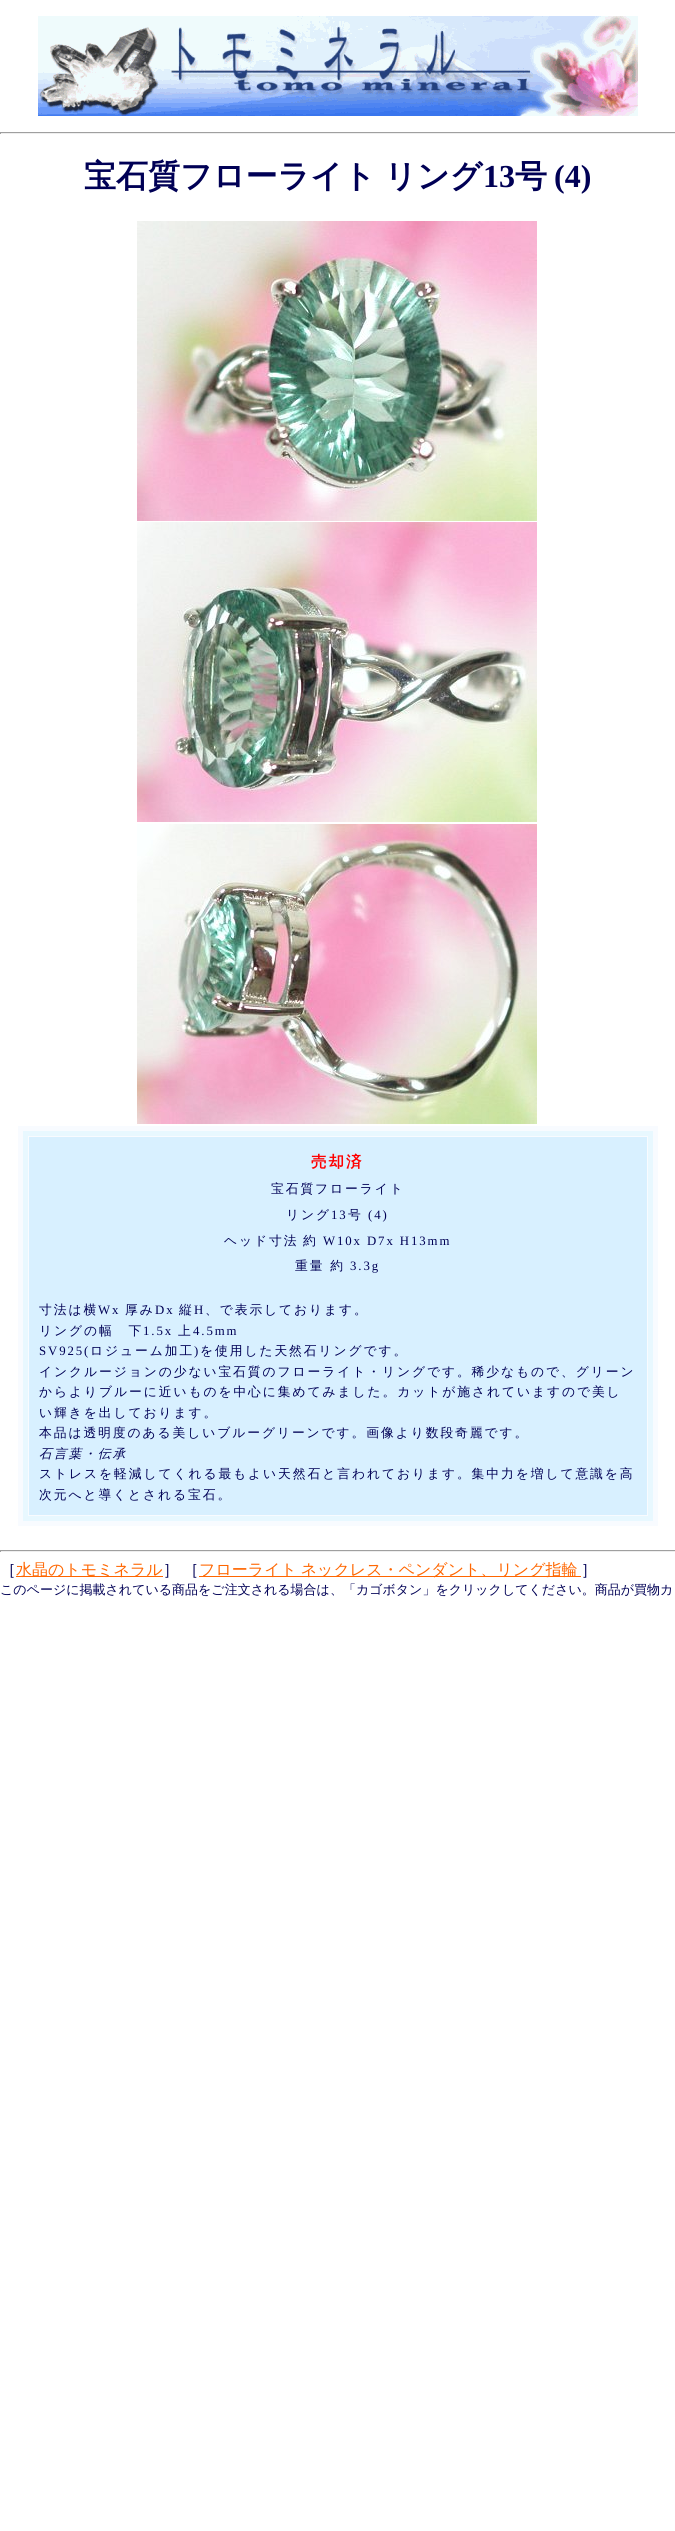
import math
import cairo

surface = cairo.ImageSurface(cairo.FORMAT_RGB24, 675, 2531)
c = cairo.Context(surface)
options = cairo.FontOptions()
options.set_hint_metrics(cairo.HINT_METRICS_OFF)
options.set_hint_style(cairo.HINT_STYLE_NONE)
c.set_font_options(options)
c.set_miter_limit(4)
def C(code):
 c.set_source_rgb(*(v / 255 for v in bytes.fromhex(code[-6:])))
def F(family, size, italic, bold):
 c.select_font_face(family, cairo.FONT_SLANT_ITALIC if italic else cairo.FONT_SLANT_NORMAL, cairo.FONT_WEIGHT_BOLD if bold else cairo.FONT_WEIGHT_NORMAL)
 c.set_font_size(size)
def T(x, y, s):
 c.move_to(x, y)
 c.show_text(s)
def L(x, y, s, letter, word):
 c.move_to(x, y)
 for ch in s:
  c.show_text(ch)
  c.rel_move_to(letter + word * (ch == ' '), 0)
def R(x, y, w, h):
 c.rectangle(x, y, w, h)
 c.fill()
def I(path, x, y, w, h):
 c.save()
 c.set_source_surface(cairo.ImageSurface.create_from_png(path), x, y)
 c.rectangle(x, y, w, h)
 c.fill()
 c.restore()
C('ffffff')
c.paint()
I('1.png',38,16,600,100)
C('9f9f9f')
R(0,132,675,1)
C('eeeeee')
R(0,133,675,1)
C('9f9f9f')
R(0,132,1,2)
F('WenQuanYi Zen Hei',32,0,1)
C('000055')
L(84,187,'宝石質フローライト リング',0,-1)
F('Liberation Serif',32,0,1)
T(483,187,'13')
F('WenQuanYi Zen Hei',32,0,1)
T(515,187,'号')
F('Liberation Serif',32,0,1)
T(554,187,'(4)')
I('2.png',137,221,400,300)
I('3.png',137,522,400,300)
I('4.png',137,824,400,300)
C('e8f8ff')
c.rectangle(20.5,1128.5,635,395)
c.fill_preserve()
C('f8fbff')
c.set_line_width(5)
c.stroke()
C('d8f0ff')
c.rectangle(28.5,1136.5,619,379)
c.fill_preserve()
C('f8fbff')
c.set_line_width(1)
c.stroke()
F('WenQuanYi Zen Hei',15.5,0,1)
C('ff0000')
L(311,1167,'売却済',2,0)
F('WenQuanYi Zen Hei Medium',12.8,0,0)
C('000055')
L(271,1193,'宝石質フローライト',1.9,0)
L(286,1219,'リング',1.9,0)
F('Liberation Serif',12.8,0,0)
L(331,1219,'13',1.9,0)
F('WenQuanYi Zen Hei Medium',12.8,0,0)
L(348,1219,'号',1.9,0)
F('Liberation Serif',12.8,0,0)
L(368,1219,'(4)',1.9,0)
F('WenQuanYi Zen Hei Medium',12.8,0,0)
L(224,1245,'ヘッド寸法',1.9,0)
L(303,1245,'約',1.9,0)
F('Liberation Serif',12.8,0,0)
L(323,1245,'W10x D7x H13mm',1.9,0)
F('WenQuanYi Zen Hei Medium',12.8,0,0)
L(295,1270,'重量 約',1.9,0)
F('Liberation Serif',12.8,0,0)
L(350,1270,'3.3g',1.9,0)
F('WenQuanYi Zen Hei Medium',12.8,0,0)
L(39,1314,'寸法は横',1.9,0)
F('Liberation Serif',12.8,0,0)
L(98,1314,'Wx',1.9,0)
F('WenQuanYi Zen Hei Medium',12.8,0,0)
L(125,1314,'厚み',1.9,0)
F('Liberation Serif',12.8,0,0)
L(155,1314,'Dx',1.9,0)
F('WenQuanYi Zen Hei Medium',12.8,0,0)
L(179,1314,'縦',1.9,0)
F('Liberation Serif',12.8,0,0)
L(194,1314,'H',1.9,0)
F('WenQuanYi Zen Hei Medium',12.8,0,0)
L(205,1314,'、で表示しております。',1.9,0)
L(39,1335,'リングの幅　下',1.9,0)
F('Liberation Serif',12.8,0,0)
L(143,1335,'1.5x',1.9,0)
F('WenQuanYi Zen Hei Medium',12.8,0,0)
L(178,1335,'上',1.9,0)
F('Liberation Serif',12.8,0,0)
L(193,1335,'4.5mm',1.9,0)
L(39,1355,'SV925(',1.9,0)
F('WenQuanYi Zen Hei Medium',12.8,0,0)
L(90,1355,'ロジューム加工',1.9,0)
F('Liberation Serif',12.8,0,0)
L(194,1355,')',1.9,0)
F('WenQuanYi Zen Hei Medium',12.8,0,0)
L(200,1355,'を使用した天然石リングです。',1.9,0)
L(39,1376,'インクルージョンの少ない宝石質のフローライト・リングです。稀少なもので、グリーン',1.9,0)
L(39,1396,'からよりブルーに近いものを中心に集めてみました。カットが施されていますので美し',1.9,0)
L(39,1417,'い輝きを出しております。',1.9,0)
L(39,1437,'本品は透明度のある美しいブルーグリーンです。画像より数段奇麗です。',1.9,0)
F('WenQuanYi Zen Hei Medium',12.8,1,0)
L(39,1458,'石言葉・伝承',1.9,0)
F('WenQuanYi Zen Hei Medium',12.8,0,0)
L(39,1478,'ストレスを軽減してくれる最もよい天然石と言われております。集中力を増して意識を高',1.9,0)
L(39,1499,'次元へと導くとされる宝石。',1.9,0)
C('9f9f9f')
R(0,1550,675,1)
C('eeeeee')
R(0,1551,675,1)
C('9f9f9f')
R(0,1550,1,2)
F('WenQuanYi Zen Hei Medium',16,0,0)
C('000055')
T(0,1575,'［')
C('ff6600')
R(16,1576,147,1)
T(16,1575,'水晶のトモミネラル')
C('000055')
L(163,1575,'］ ［',0,-1)
C('ff6600')
R(199,1576,382,1)
L(199,1575,'フローライト ネックレス・ペンダント、リング指輪',0,-1)
C('000055')
T(581,1575,'］')
F('WenQuanYi Zen Hei Medium',13,0,0)
T(0,1594,'このページに掲載されている商品をご注文される場合は、「カゴボタン」をクリックしてください。商品が買物カ')
surface.write_to_png('o.png')
